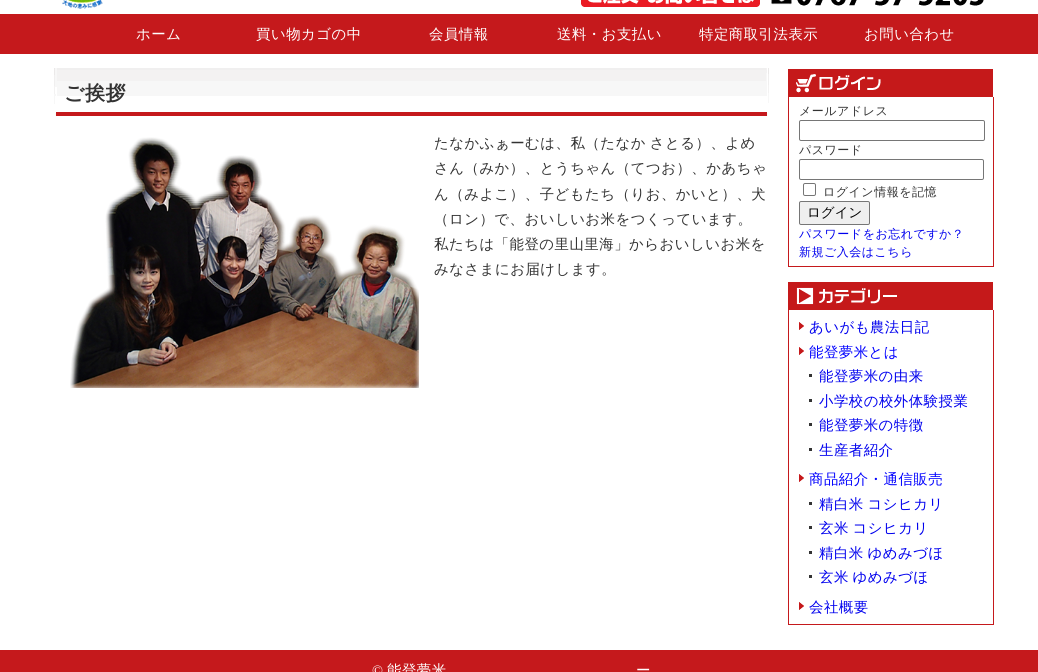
import math
import cairo

surface = cairo.ImageSurface(cairo.FORMAT_RGB24, 1038, 672)
c = cairo.Context(surface)
options = cairo.FontOptions()
options.set_hint_metrics(cairo.HINT_METRICS_OFF)
options.set_hint_style(cairo.HINT_STYLE_NONE)
c.set_font_options(options)
c.set_miter_limit(4)
def C(code):
 c.set_source_rgb(*(v / 255 for v in bytes.fromhex(code[-6:])))
def F(family, size, italic, bold):
 c.select_font_face(family, cairo.FONT_SLANT_ITALIC if italic else cairo.FONT_SLANT_NORMAL, cairo.FONT_WEIGHT_BOLD if bold else cairo.FONT_WEIGHT_NORMAL)
 c.set_font_size(size)
def T(x, y, s):
 c.move_to(x, y)
 c.show_text(s)
def L(x, y, s, letter, word):
 c.move_to(x, y)
 for ch in s:
  c.show_text(ch)
  c.rel_move_to(letter + word * (ch == ' '), 0)
def R(x, y, w, h):
 c.rectangle(x, y, w, h)
 c.fill()
def Q(x, y, w, h, r):
 c.new_sub_path()
 for i, (u, v) in enumerate([(x + w - r, y + h - r), (x + r, y + h - r), (x + r, y + r), (x + w - r, y + r)]):
  c.arc(u, v, r, i * math.pi / 2, (i + 1) * math.pi / 2)
 c.close_path()
def I(path, x, y, w, h):
 c.save()
 c.set_source_surface(cairo.ImageSurface.create_from_png(path), x, y)
 c.rectangle(x, y, w, h)
 c.fill()
 c.restore()
C('ffffff')
c.paint()
I('1.png',62,0,41,9)
I('2.png',581,0,403,7)
C('c5191c')
R(0,14,1038,40)
F('WenQuanYi Zen Hei Medium',14.4,0,0)
C('ffffff')
L(136,39,'ホーム',.5,0)
L(256,39,'買い物カゴの中',.5,0)
L(429,39,'会員情報',.5,0)
L(557,39,'送料・お支払い',.5,0)
L(699,39,'特定商取引法表示',.5,0)
L(864,39,'お問い合わせ',.5,0)
I('3.png',54,68,715,48)
F('WenQuanYi Zen Hei',20,0,1)
C('333333')
L(64,100,'ご挨拶',.5,0)
I('4.png',70,137,349,251)
F('WenQuanYi Zen Hei Medium',14.4,0,0)
L(434,148,'たなかふぁーむは、私（たなか さとる）、よめ',.5,-1)
L(434,173,'さん（みか）、とうちゃん（てつお）、かあちゃ',.5,0)
L(434,199,'ん（みよこ）、子どもたち（りお、かいと）、犬',.5,0)
L(434,224,'（ロン）で、おいしいお米をつくっています。',.5,0)
L(434,249,'私たちは「能登の里山里海」からおいしいお米を',.5,0)
L(434,274,'みなさまにお届けします。',.5,0)
I('5.png',788,69,205,28)
C('c5191c')
R(993,97,1,170)
R(788,266,206,1)
R(788,97,1,170)
F('WenQuanYi Zen Hei Medium',12,0,0)
C('333333')
L(799,115,'メールアドレス',.5,0)
Q(799.5,120.5,185,20,1.5)
C('767676')
c.set_line_width(1)
c.stroke()
C('333333')
L(799,154,'パスワード',.5,0)
Q(799.5,159.5,184,20,1.5)
C('767676')
c.stroke()
Q(803.5,183.5,12,12,1.5)
c.stroke()
C('333333')
L(823,196,'ログイン情報を記憶',.5,0)
C('efefef')
Q(799.5,201.5,70,23,1.5)
c.fill_preserve()
C('767676')
c.stroke()
F('WenQuanYi Zen Hei Medium',13.5,0,0)
C('000000')
T(807,217,'ログイン')
F('WenQuanYi Zen Hei Medium',12,0,0)
C('0000ee')
L(799,238,'パスワードをお忘れですか？',.5,0)
L(799,256,'新規ご入会はこちら',.5,0)
I('6.png',788,282,205,28)
C('c5191c')
R(993,310,1,315)
R(788,624,206,1)
R(788,310,1,315)
I('7.png',799,322,5,8)
F('WenQuanYi Zen Hei Medium',14.4,0,0)
C('0000ee')
L(809,332,'あいがも農法日記',.5,0)
I('7.png',799,347,5,8)
C('0000ff')
L(809,357,'能登夢米とは',.5,0)
C('333333')
R(809,374,3,3)
C('0000ee')
L(819,381,'能登夢米の由来',.5,0)
C('333333')
R(809,399,3,3)
C('0000ee')
L(819,406,'小学校の校外体験授業',.5,0)
C('333333')
R(809,423,3,3)
C('0000ee')
L(819,430,'能登夢米の特徴',.5,0)
C('333333')
R(809,448,3,3)
C('0000ee')
L(819,455,'生産者紹介',.5,0)
I('7.png',799,474,5,8)
C('0000ff')
L(809,484,'商品紹介・通信販売',.5,0)
C('333333')
R(809,502,3,3)
C('0000ee')
L(819,509,'精白米 コシヒカリ',.5,-1)
C('333333')
R(809,526,3,3)
C('0000ee')
L(819,533,'玄米 コシヒカリ',.5,-1)
C('333333')
R(809,551,3,3)
C('0000ee')
L(819,558,'精白米 ゆめみづほ',.5,-1)
C('333333')
R(809,575,3,3)
C('0000ee')
L(819,582,'玄米 ゆめみづほ',.5,-1)
I('7.png',799,602,5,8)
L(809,612,'会社概要',.5,0)
C('c5191c')
R(0,650,1038,22)
F('Liberation Serif',14.4,0,0)
C('ffffff')
L(372,675,'©',.5,0)
F('WenQuanYi Zen Hei Medium',14.4,0,0)
L(387,675,'能登夢米',.5,0)
L(636,675,'ー',.5,0)
surface.write_to_png('o.png')
